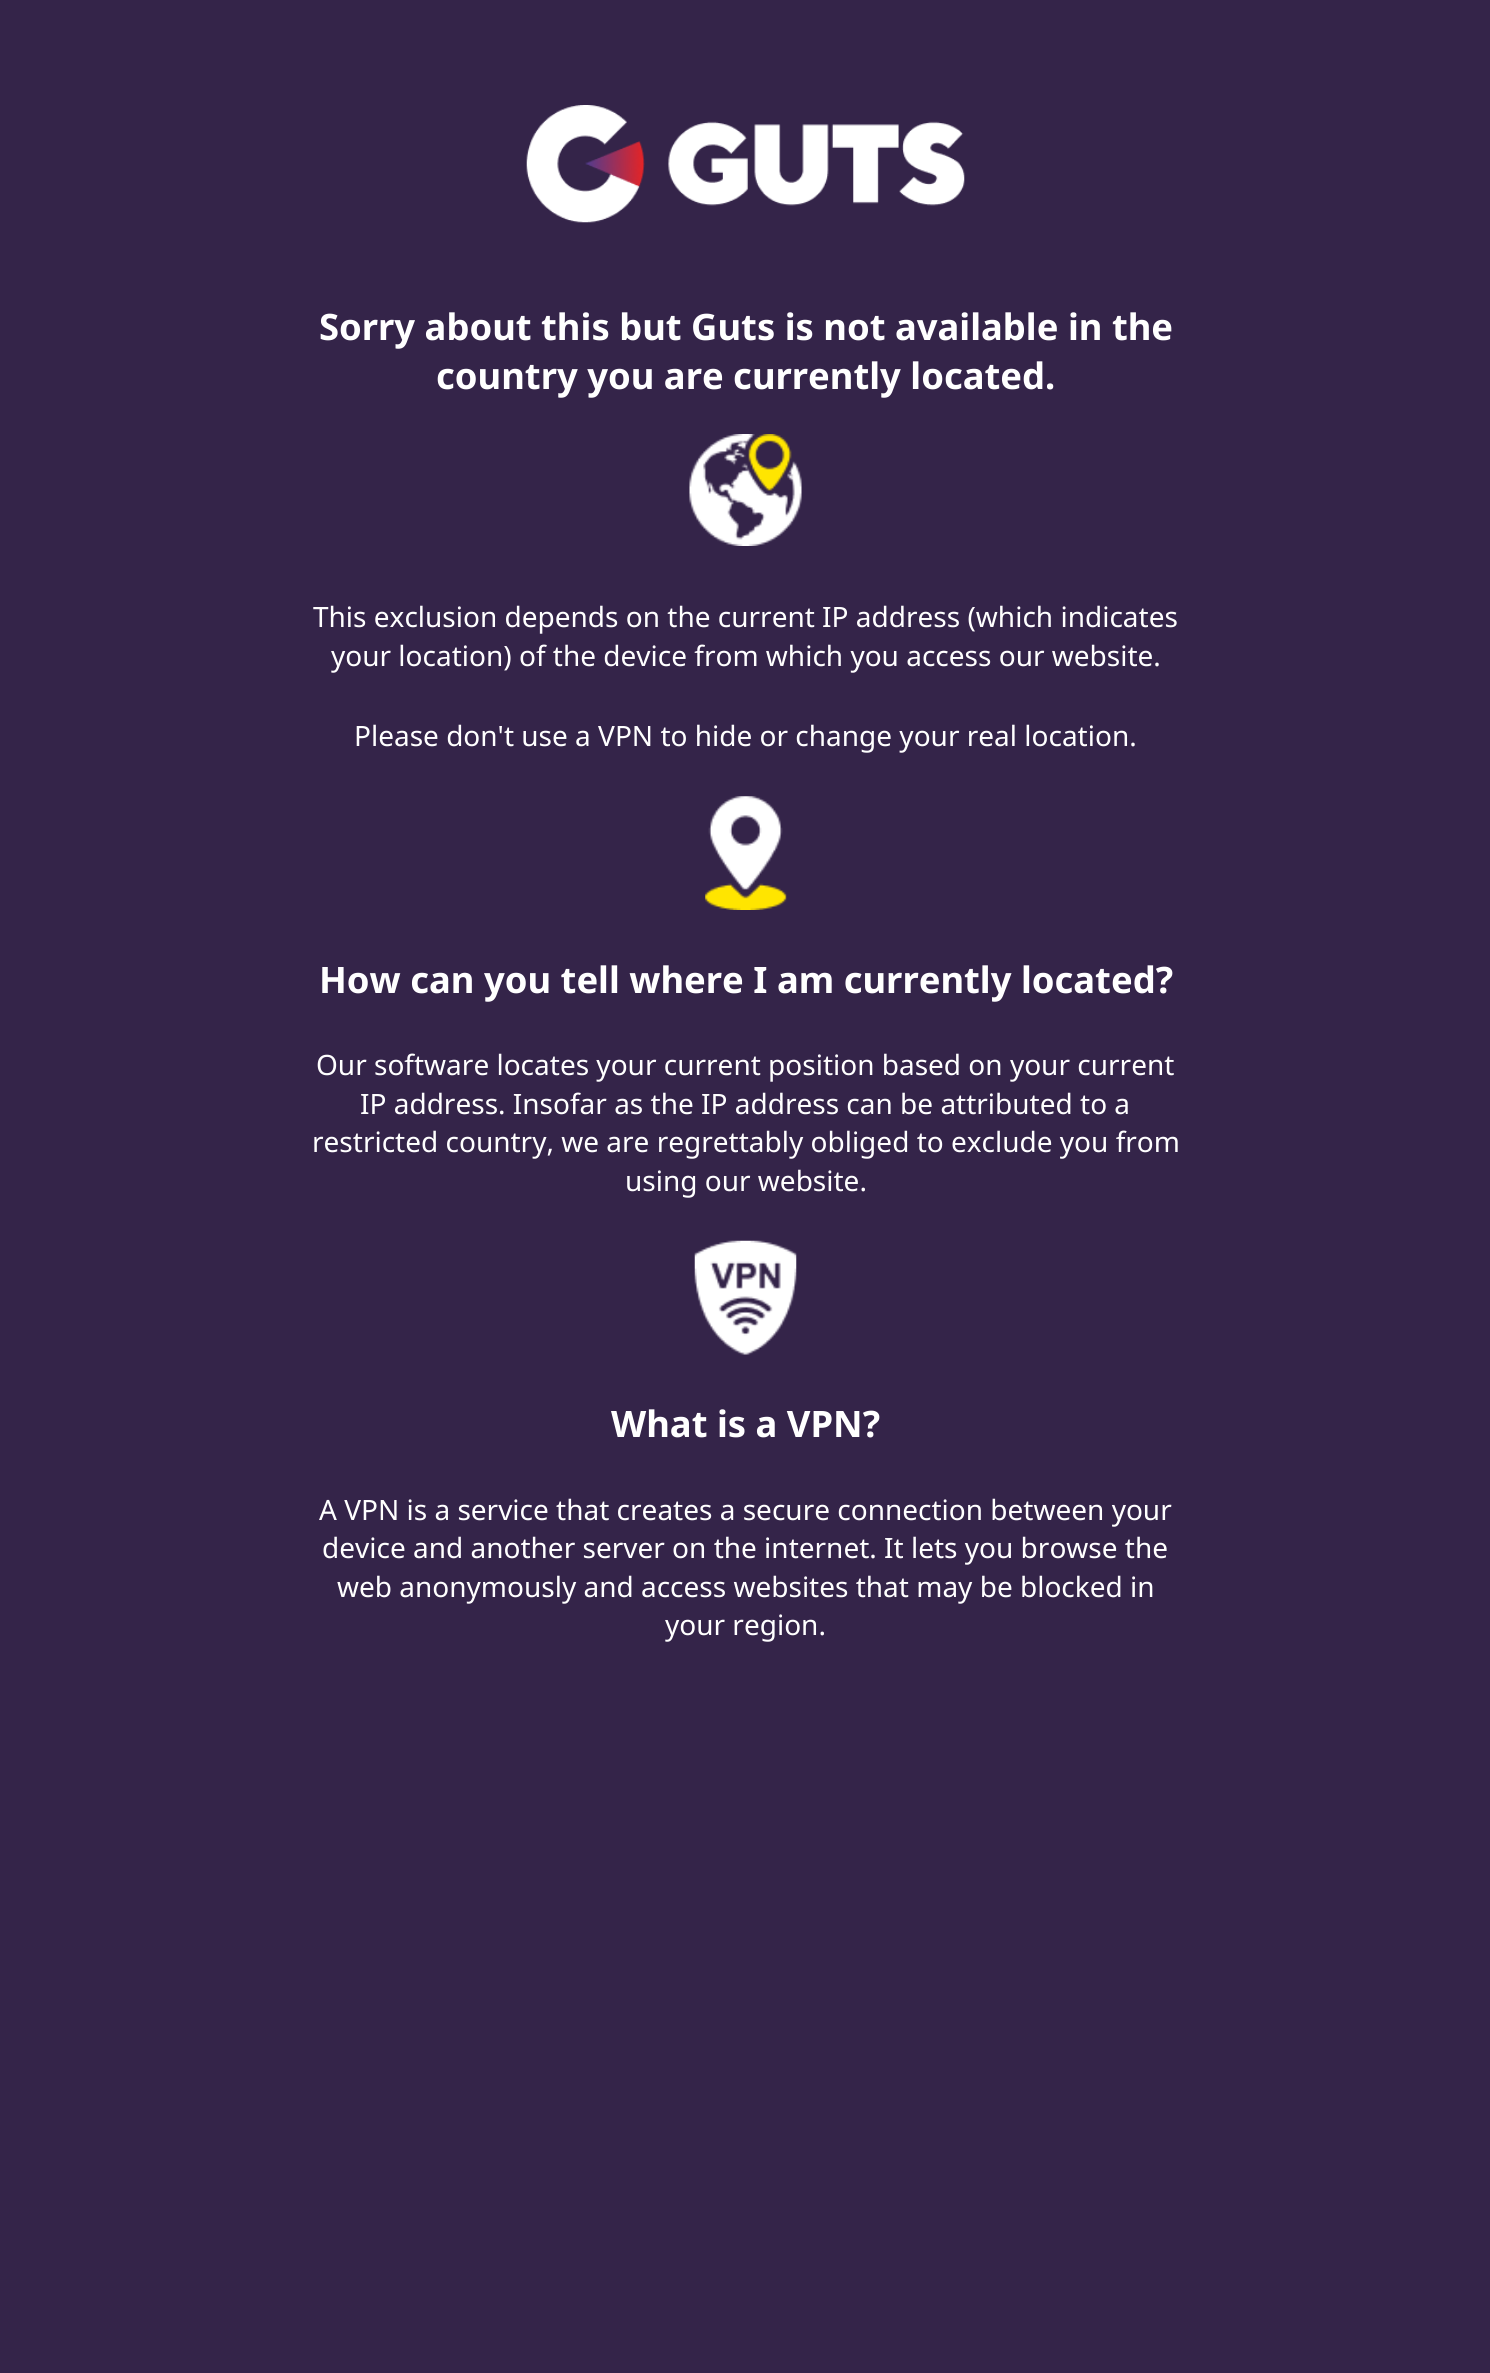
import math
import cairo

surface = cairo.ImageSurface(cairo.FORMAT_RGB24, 1490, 2373)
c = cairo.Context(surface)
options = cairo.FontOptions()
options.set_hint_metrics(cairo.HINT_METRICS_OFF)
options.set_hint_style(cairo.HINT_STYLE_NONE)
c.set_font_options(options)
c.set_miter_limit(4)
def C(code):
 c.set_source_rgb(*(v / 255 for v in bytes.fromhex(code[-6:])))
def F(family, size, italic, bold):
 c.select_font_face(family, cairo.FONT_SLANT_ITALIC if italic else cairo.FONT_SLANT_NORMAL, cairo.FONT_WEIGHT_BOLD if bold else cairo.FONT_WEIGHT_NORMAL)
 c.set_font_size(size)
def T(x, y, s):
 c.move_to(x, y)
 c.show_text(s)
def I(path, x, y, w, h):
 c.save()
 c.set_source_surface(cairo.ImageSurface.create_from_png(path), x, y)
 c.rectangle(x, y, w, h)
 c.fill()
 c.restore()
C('342449')
c.paint()
I('1.png',526,105,439,118)
F('Noto Sans',36.4,0,1)
C('ffffff')
T(319,340,'Sorry about this but Guts is not available in the')
T(436,389,'country you are currently located.')
I('2.png',689,434,113,112)
F('Noto Sans',28,0,0)
T(313,627,'This exclusion depends on the current IP address (which indicates')
T(331,666,'your location) of the device from which you access our website.')
T(354,746,'Please don\'t use a VPN to hide or change your real location.')
I('3.png',705,796,82,114)
F('Noto Sans',36.4,0,1)
T(319,993,'How can you tell where I am currently located?')
F('Noto Sans',28,0,0)
T(316,1075,'Our software locates your current position based on your current')
T(360,1114,'IP address. Insofar as the IP address can be attributed to a')
T(312,1152,'restricted country, we are regrettably obliged to exclude you from')
T(625,1191,'using our website.')
I('4.png',694,1240,103,115)
F('Noto Sans',36.4,0,1)
T(611,1437,'What is a VPN?')
F('Noto Sans',28,0,0)
T(319,1520,'A VPN is a service that creates a secure connection between your')
T(322,1558,'device and another server on the internet. It lets you browse the')
T(337,1597,'web anonymously and access websites that may be blocked in')
T(665,1635,'your region.')
surface.write_to_png('o.png')
